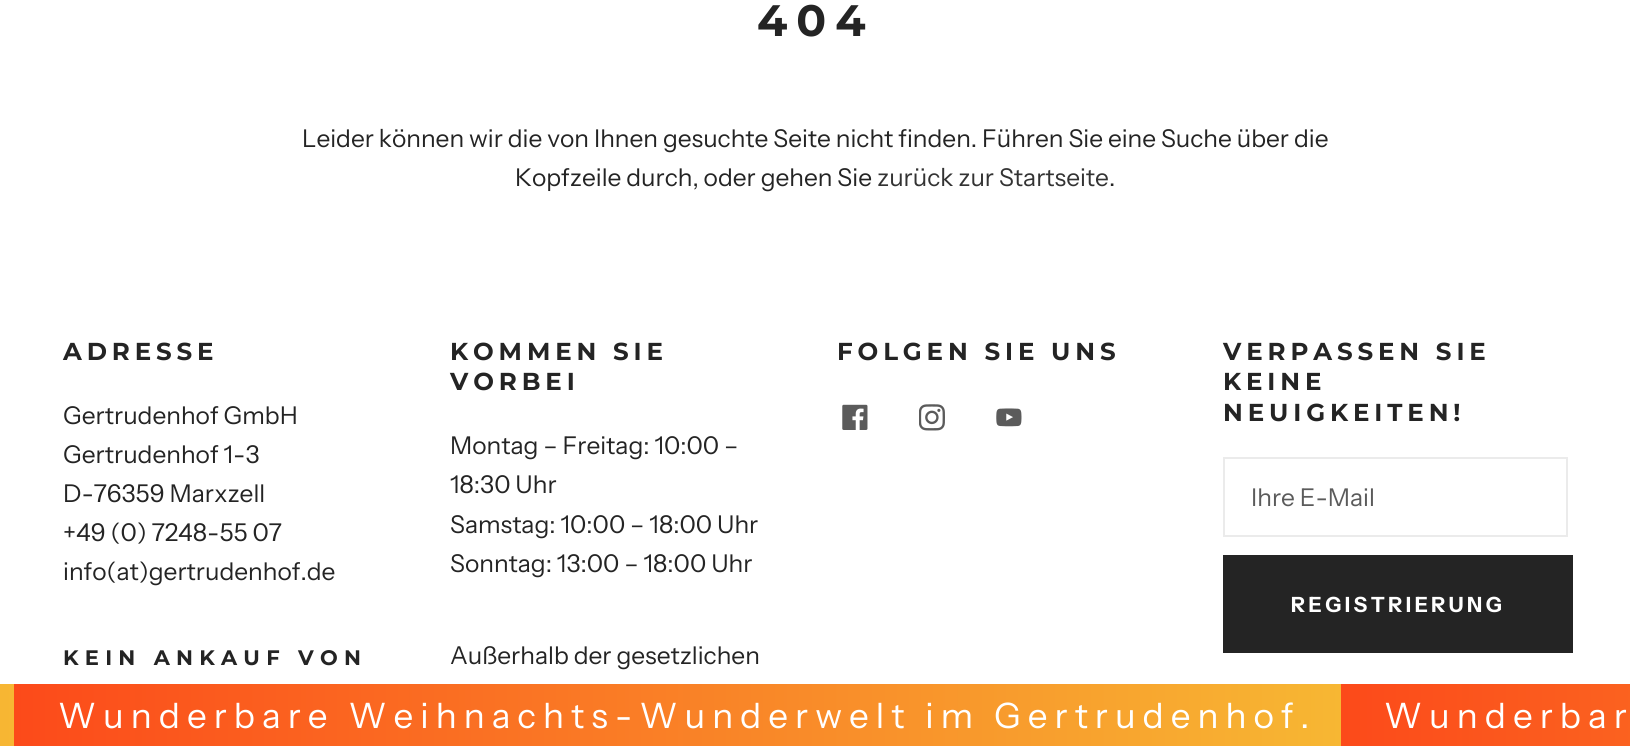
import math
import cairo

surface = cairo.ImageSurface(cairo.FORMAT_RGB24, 1630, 746)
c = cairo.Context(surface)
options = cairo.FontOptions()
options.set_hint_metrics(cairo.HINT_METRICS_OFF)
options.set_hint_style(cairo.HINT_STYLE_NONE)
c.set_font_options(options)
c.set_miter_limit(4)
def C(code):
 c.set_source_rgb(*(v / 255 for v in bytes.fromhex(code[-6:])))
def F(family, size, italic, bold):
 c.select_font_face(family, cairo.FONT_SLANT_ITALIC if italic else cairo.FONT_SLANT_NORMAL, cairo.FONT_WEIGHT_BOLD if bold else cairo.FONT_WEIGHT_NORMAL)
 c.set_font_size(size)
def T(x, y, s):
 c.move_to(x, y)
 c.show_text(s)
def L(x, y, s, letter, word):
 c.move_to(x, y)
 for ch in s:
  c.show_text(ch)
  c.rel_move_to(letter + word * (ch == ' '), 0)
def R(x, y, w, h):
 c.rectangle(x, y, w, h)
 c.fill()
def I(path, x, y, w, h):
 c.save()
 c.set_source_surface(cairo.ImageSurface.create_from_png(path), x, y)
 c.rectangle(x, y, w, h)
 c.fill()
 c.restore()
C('ffffff')
c.paint()
F('Montserrat',44,0,1)
C('242424')
L(757,36,'404',9,0)
F('Instrument Sans',24.5,0,0)
T(302,147,'Leider können wir die von Ihnen gesuchte Seite nicht finden. Führen Sie eine Suche über die')
T(515,186,'Kopfzeile durch, oder gehen Sie')
C('333333')
T(877,186,'zurück zur Startseite')
C('242424')
T(1109,186,'.')
F('Montserrat',24.5,0,1)
L(63,360,'ADRESSE',4.9,0)
F('Instrument Sans',24.5,0,0)
T(63,424,'Gertrudenhof GmbH')
T(63,463,'Gertrudenhof 1-3')
T(63,502,'D-76359 Marxzell')
T(63,541,'+49 (0) 7248-55 07')
T(63,580,'info(at)gertrudenhof.de')
F('Montserrat',21,0,1)
L(63,665,'KEIN ANKAUF VON',6.25,0)
F('Montserrat',24.5,0,1)
L(450,360,'KOMMEN SIE',4.9,0)
L(450,390,'VORBEI',4.9,0)
F('Instrument Sans',24.5,0,0)
T(450,454,'Montag – Freitag: 10:00 –')
T(450,493,'18:30 Uhr')
T(450,533,'Samstag: 10:00 – 18:00 Uhr')
T(450,572,'Sonntag: 13:00 – 18:00 Uhr')
T(450,664,'Außerhalb der gesetzlichen')
F('Montserrat',24.5,0,1)
L(837,360,'FOLGEN SIE UNS',4.9,0)
I('1.png',842,404,26,26)
I('2.png',919,404,26,27)
I('3.png',996,408,26,19)
L(1223,360,'VERPASSEN SIE',4.9,0)
L(1223,390,'KEINE',4.9,0)
L(1223,421,'NEUIGKEITEN!',4.9,0)
c.rectangle(1224,458,343,78)
C('ebebeb')
c.stroke()
F('Instrument Sans',24.5,0,0)
C('5b5b5b')
T(1251,506,'Ihre E-Mail')
C('242424')
R(1223,555,350,98)
F('Instrument Sans',21,0,1)
C('ffffff')
L(1291,612,'REGISTRIERUNG',3.5,0)
gradient = cairo.LinearGradient(-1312,716,16,716)
gradient.add_color_stop_rgba(0,0.988,0.29,0.102,1)
gradient.add_color_stop_rgba(1,0.969,0.718,0.2,1)
c.set_source(gradient)
R(0,684,14,62)
gradient = cairo.LinearGradient(14,716,1342,716)
gradient.add_color_stop_rgba(0,0.988,0.29,0.102,1)
gradient.add_color_stop_rgba(1,0.969,0.718,0.2,1)
c.set_source(gradient)
R(14,684,1327,62)
F('Instrument Sans',35,0,0)
C('ffffff')
L(58,728,'Wunderbare Weihnachts-Wunderwelt im Gertrudenhof.',7,0)
gradient = cairo.LinearGradient(1341,716,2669,716)
gradient.add_color_stop_rgba(0,0.988,0.29,0.102,1)
gradient.add_color_stop_rgba(1,0.969,0.718,0.2,1)
c.set_source(gradient)
R(1341,684,289,62)
C('ffffff')
L(1384,728,'Wunderbar',7,0)
surface.write_to_png('o.png')
